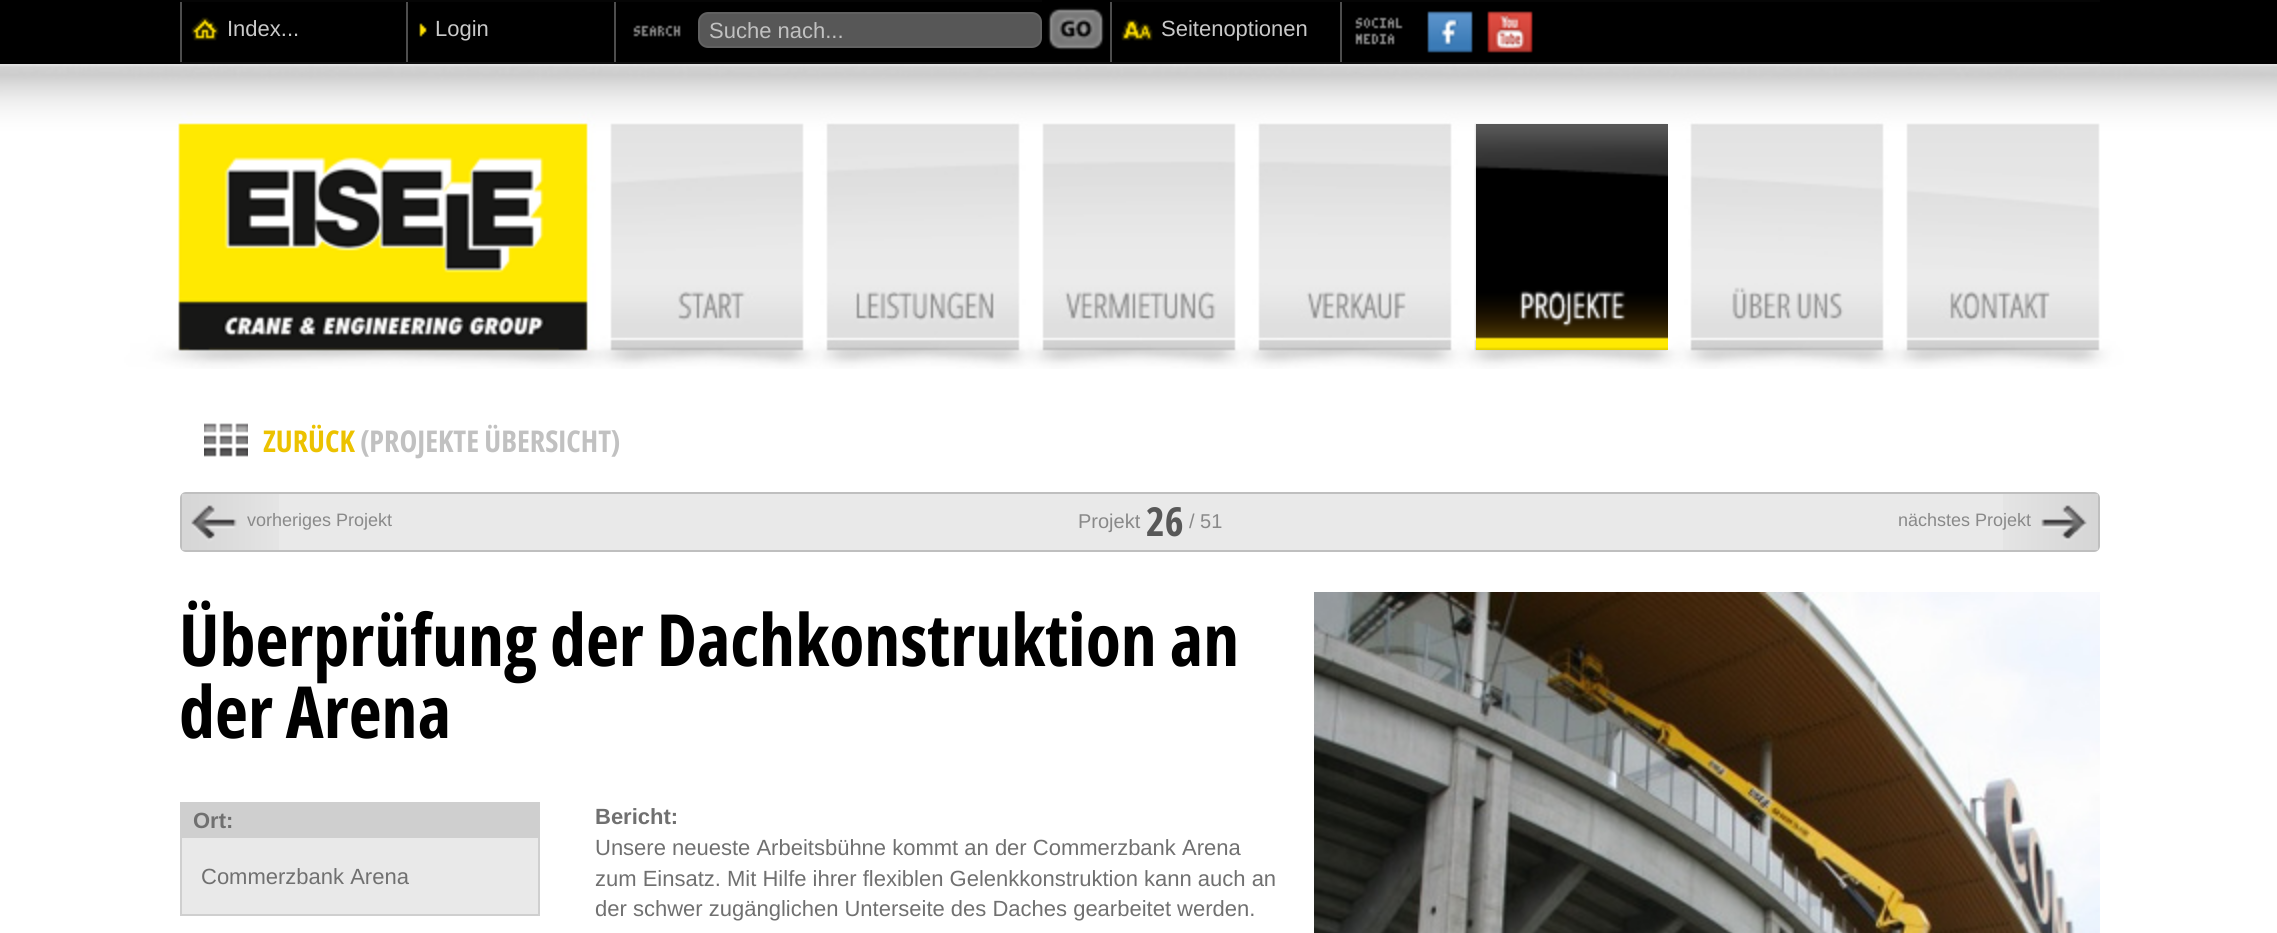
import math
import cairo

surface = cairo.ImageSurface(cairo.FORMAT_RGB24, 2277, 933)
c = cairo.Context(surface)
options = cairo.FontOptions()
options.set_hint_metrics(cairo.HINT_METRICS_OFF)
options.set_hint_style(cairo.HINT_STYLE_NONE)
c.set_font_options(options)
c.set_miter_limit(4)
def C(code):
 c.set_source_rgb(*(v / 255 for v in bytes.fromhex(code[-6:])))
def F(family, size, italic, bold):
 c.select_font_face(family, cairo.FONT_SLANT_ITALIC if italic else cairo.FONT_SLANT_NORMAL, cairo.FONT_WEIGHT_BOLD if bold else cairo.FONT_WEIGHT_NORMAL)
 c.set_font_size(size)
def T(x, y, s):
 c.move_to(x, y)
 c.show_text(s)
def R(x, y, w, h):
 c.rectangle(x, y, w, h)
 c.fill()
def Q(x, y, w, h, r):
 c.new_sub_path()
 for i, (u, v) in enumerate([(x + w - r, y + h - r), (x + r, y + h - r), (x + r, y + r), (x + w - r, y + r)]):
  c.arc(u, v, r, i * math.pi / 2, (i + 1) * math.pi / 2)
 c.close_path()
def I(path, x, y, w, h):
 c.save()
 c.set_source_surface(cairo.ImageSurface.create_from_png(path), x, y)
 c.rectangle(x, y, w, h)
 c.fill()
 c.restore()
C('ffffff')
c.paint()
I('1.png',0,64,2277,305)
C('000000')
R(0,0,2277,64)
C('050505')
R(180,0,1920,2)
C('0d0d0d')
R(180,62,1920,2)
C('4d4d4d')
R(180,2,2,60)
I('2.png',191,17,28,24)
F('Liberation Sans',22,0,0)
C('c9c9c9')
T(227,36,'Index...')
C('4d4d4d')
R(406,2,2,60)
I('3.png',419,23,8,14)
C('c9c9c9')
T(435,36,'Login')
C('4d4d4d')
R(614,2,2,60)
I('4.png',633,25,48,12)
C('575757')
Q(699,13,342,34,9)
c.fill_preserve()
C('616161')
c.stroke()
C('c1c1c1')
T(709,38,'Suche nach...')
I('5.png',1042,0,68,50)
C('4d4d4d')
R(1110,2,2,60)
I('6.png',1121,19,32,22)
C('c9c9c9')
T(1161,36,'Seitenoptionen')
C('4d4d4d')
R(1340,2,2,60)
I('7.png',1355,17,48,28)
I('8.png',1427,11,46,42)
I('9.png',1487,11,46,42)
I('10.png',1476,124,192,226)
I('11.png',204,423,44,34)
F('Open Sans Condensed',30,0,1)
C('ecc200')
T(263,452,'ZURÜCK')
C('c1c1c1')
T(360,452,'(PROJEKTE ÜBERSICHT)')
C('e9e9e9')
Q(181,493,1918,58,5)
c.fill_preserve()
C('bfbfbf')
c.stroke()
I('12.png',182,494,97,56)
F('Liberation Sans',18,0,0)
C('898989')
T(247,526,'vorheriges Projekt')
F('Liberation Sans',20,0,0)
T(1078,528,'Projekt')
F('Open Sans Condensed',40,0,1)
C('585858')
T(1146,536,'26')
F('Liberation Sans',20,0,0)
C('898989')
T(1189,528,'/ 51')
I('13.png',2003,494,95,56)
F('Liberation Sans',18,0,0)
T(1898,526,'nächstes Projekt')
F('Open Sans Condensed',72,0,1)
C('000000')
T(179,666,'Überprüfung der Dachkonstruktion an')
T(179,738,'der Arena')
c.rectangle(181,803,358,112)
C('cfcfcf')
c.stroke()
R(182,804,356,34)
F('Liberation Sans',22,0,1)
C('707070')
T(193,828,'Ort:')
C('e9e9e9')
R(182,838,356,76)
F('Liberation Sans',22,0,0)
C('707070')
T(201,884,'Commerzbank Arena')
F('Liberation Sans',22,0,1)
T(595,824,'Bericht:')
F('Liberation Sans',22,0,0)
T(595,855,'Unsere neueste Arbeitsbühne kommt an der Commerzbank Arena')
T(595,886,'zum Einsatz. Mit Hilfe ihrer flexiblen Gelenkkonstruktion kann auch an')
T(595,916,'der schwer zugänglichen Unterseite des Daches gearbeitet werden.')
I('14.png',1314,592,786,341)
surface.write_to_png('o.png')
